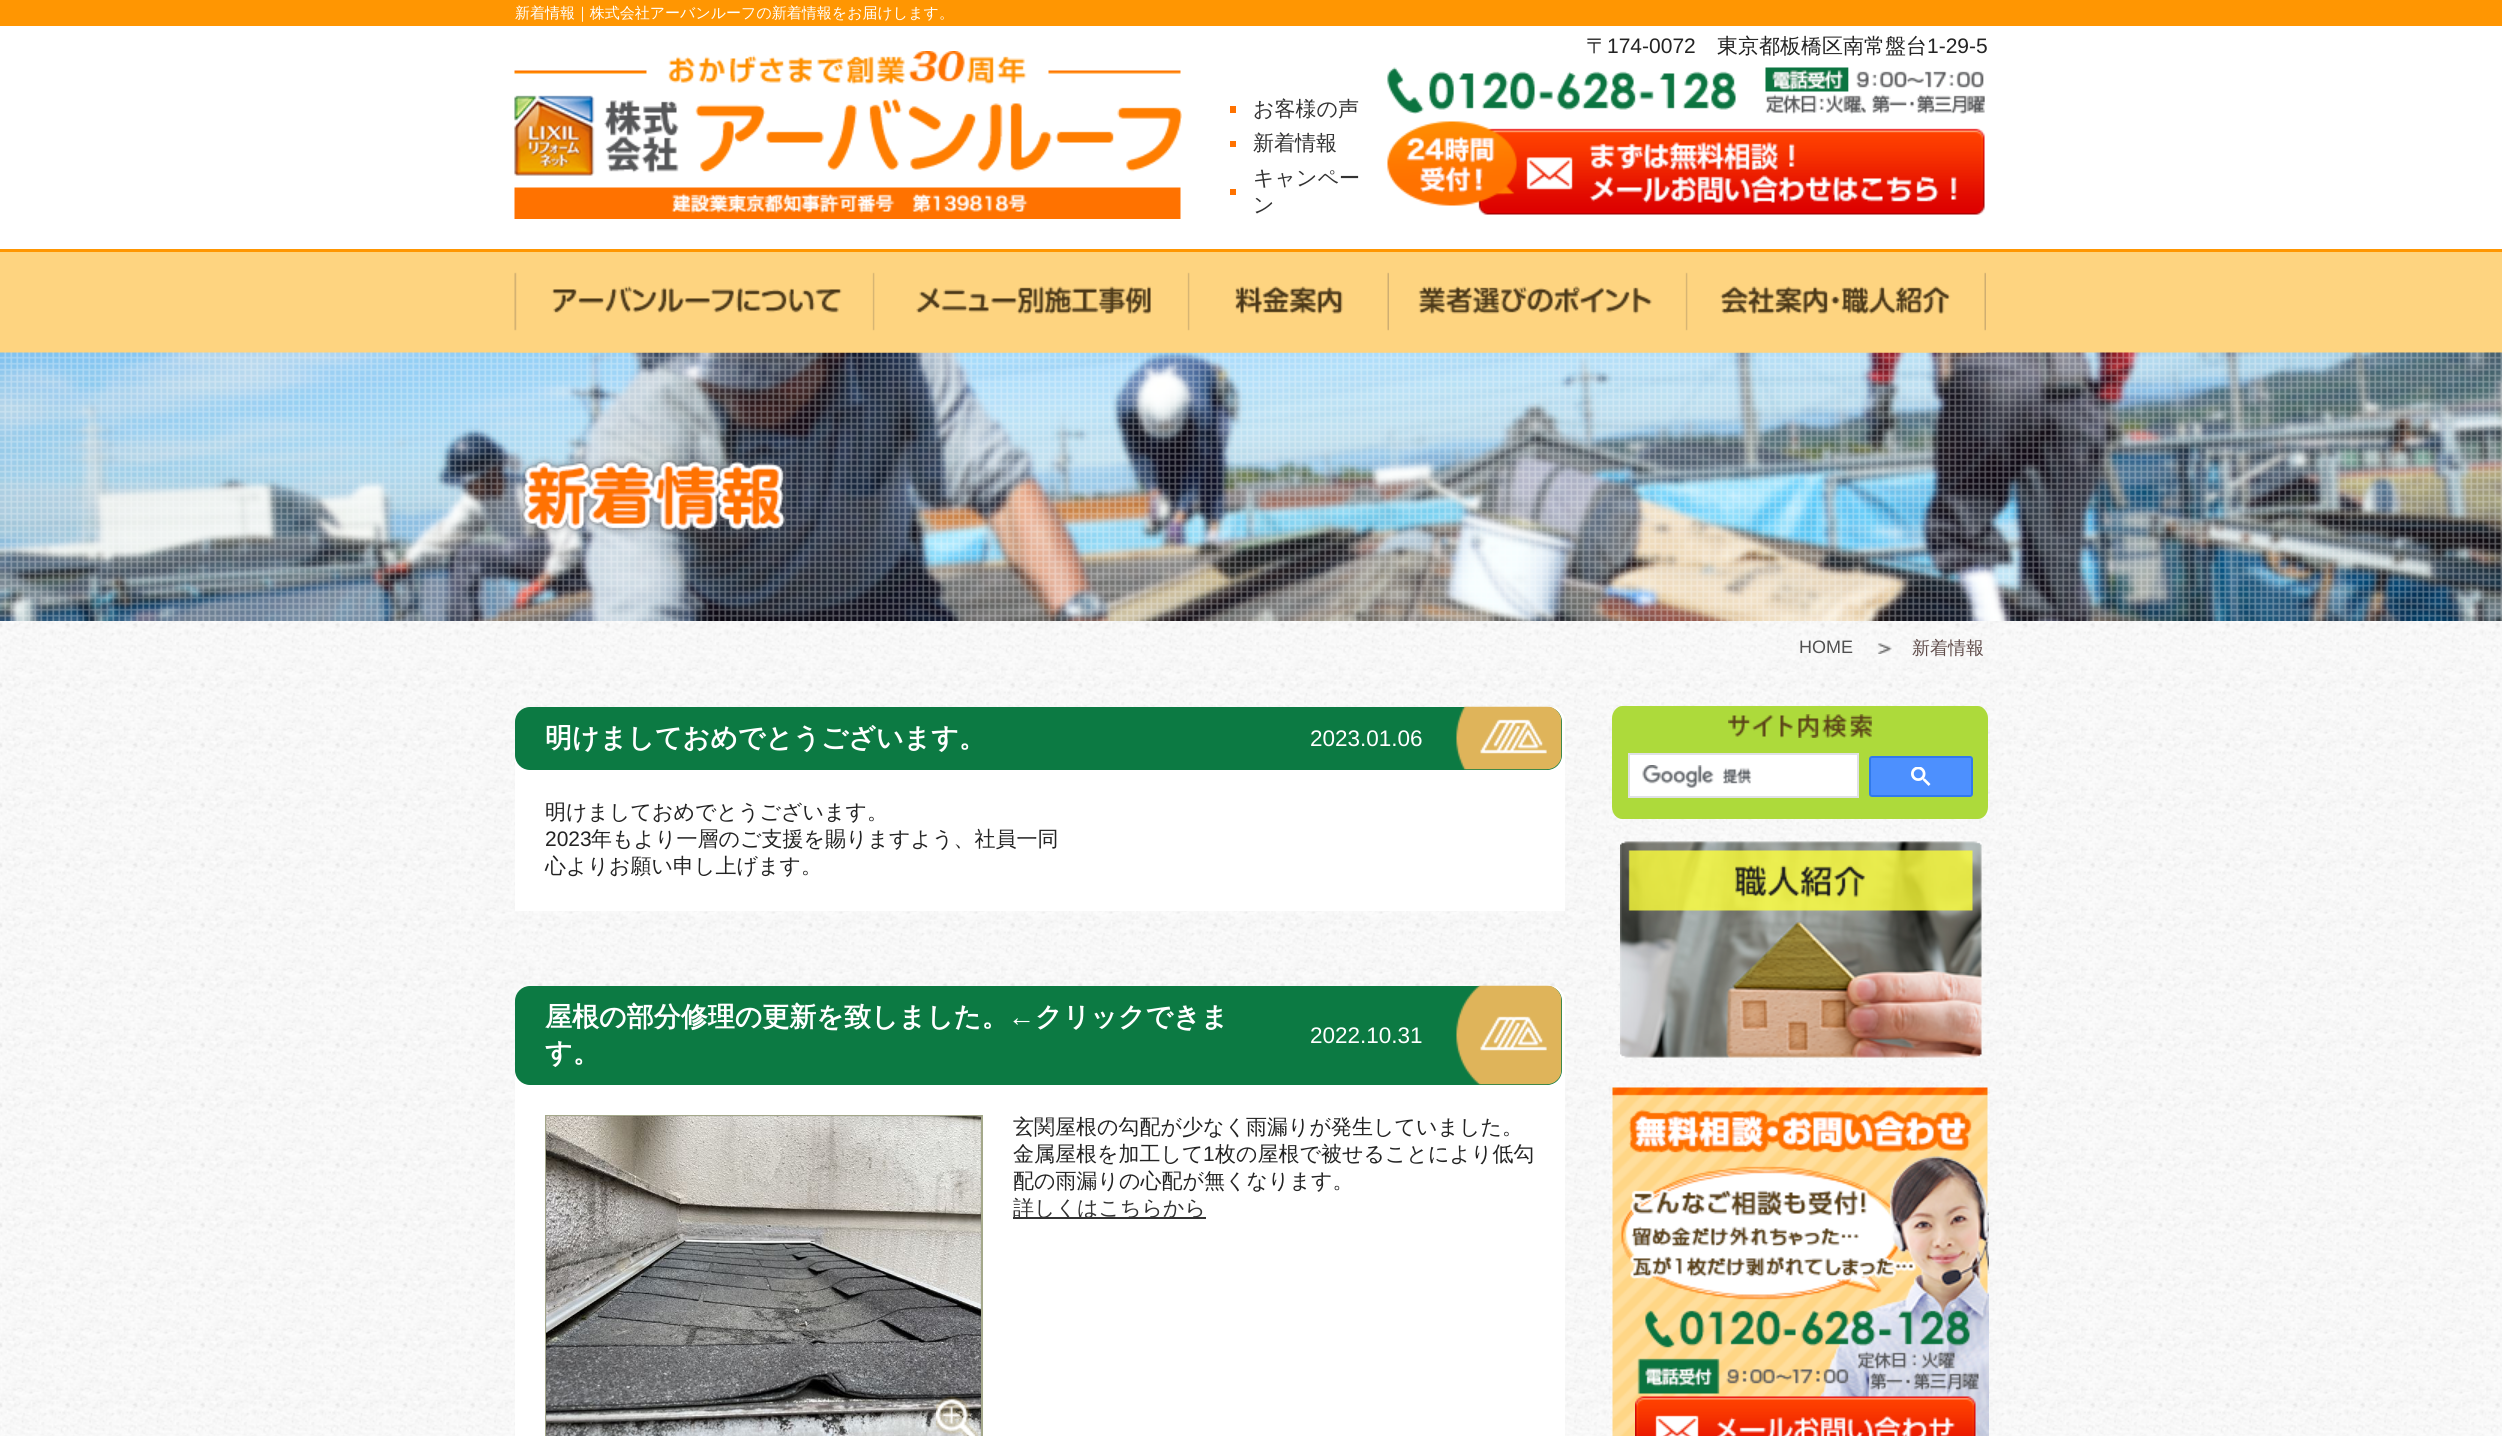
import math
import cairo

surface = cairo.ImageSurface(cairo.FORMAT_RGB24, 2502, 1436)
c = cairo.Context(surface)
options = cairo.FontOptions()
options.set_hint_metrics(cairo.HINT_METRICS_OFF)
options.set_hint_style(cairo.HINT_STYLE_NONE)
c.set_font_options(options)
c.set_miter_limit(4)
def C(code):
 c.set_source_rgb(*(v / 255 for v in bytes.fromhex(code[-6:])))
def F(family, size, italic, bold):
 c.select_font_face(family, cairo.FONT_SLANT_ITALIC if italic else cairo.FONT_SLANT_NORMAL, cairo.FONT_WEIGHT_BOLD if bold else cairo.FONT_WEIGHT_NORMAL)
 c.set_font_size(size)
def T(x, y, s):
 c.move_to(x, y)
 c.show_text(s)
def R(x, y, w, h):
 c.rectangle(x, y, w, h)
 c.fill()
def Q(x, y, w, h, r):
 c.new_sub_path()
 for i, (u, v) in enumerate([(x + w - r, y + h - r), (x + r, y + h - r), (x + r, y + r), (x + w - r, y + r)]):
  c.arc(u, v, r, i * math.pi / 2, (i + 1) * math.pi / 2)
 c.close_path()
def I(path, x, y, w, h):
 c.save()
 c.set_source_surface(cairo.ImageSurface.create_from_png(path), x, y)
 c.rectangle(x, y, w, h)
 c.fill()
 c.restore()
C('ffffff')
c.paint()
C('ff9602')
R(0,0,2502,26)
F('WenQuanYi Zen Hei Medium',15,0,0)
C('ffffff')
T(515,18,'新着情報｜株式会社アーバンルーフの新着情報をお届けします。')
I('1.png',514,51,668,168)
F('WenQuanYi Zen Hei Medium',21,0,0)
C('232323')
T(1586,53,'〒')
F('Liberation Sans',21,0,0)
T(1607,53,'174-0072')
F('WenQuanYi Zen Hei Medium',21,0,0)
T(1717,53,'東京都板橋区南常盤台')
F('Liberation Sans',21,0,0)
T(1927,53,'1-29-5')
C('ff7200')
R(1230,106,6,7)
F('WenQuanYi Zen Hei Medium',21,0,0)
C('333333')
T(1253,116,'お客様の声')
C('ff7200')
R(1230,141,6,6)
C('333333')
T(1253,150,'新着情報')
C('ff7200')
R(1230,189,6,6)
C('333333')
T(1253,185,'キャンペー')
T(1253,212,'ン')
I('2.png',1387,67,349,47)
I('3.png',1765,67,220,47)
I('4.png',1387,121,598,94)
C('fed480')
R(0,252,2502,101)
C('ff9602')
R(0,249,2502,3)
I('10.png',0,352,2502,269)
I('5.png',514,272,361,81)
I('6.png',874,272,316,81)
I('7.png',1189,272,200,81)
I('8.png',1389,272,299,81)
I('9.png',1687,272,299,81)
I('11.png',518,456,271,80)
I('12.png',0,621,2502,815)
F('Liberation Sans',18,0,0)
C('505050')
T(1799,653,'HOME')
I('13.png',1877,643,15,11)
F('WenQuanYi Zen Hei Medium',18,0,0)
C('614e4c')
T(1912,654,'新着情報')
C('ffffff')
c.new_path()
c.move_to(530,707)
c.line_to(1550,707)
c.curve_to(1558.5,707,1565,713.5,1565,722)
c.line_to(1565,911)
c.line_to(515,911)
c.line_to(515,722)
c.curve_to(515,713.5,521.5,707,530,707)
c.close_path()
c.fill()
C('0c7a43')
Q(515,707,1047,63,15)
c.fill()
I('14.png',1456,706,106,64)
F('WenQuanYi Zen Hei',27,0,1)
C('ffffff')
T(545,747,'明けましておめでとうございます。')
F('Liberation Sans',22.5,0,0)
T(1310,746,'2023.01.06')
F('WenQuanYi Zen Hei Medium',21,0,0)
C('232323')
T(545,819,'明けましておめでとうございます。')
F('Liberation Sans',21,0,0)
T(545,846,'2023')
F('WenQuanYi Zen Hei Medium',21,0,0)
T(591,846,'年もより一層のご支援を賜りますよう、社員一同')
T(545,873,'心よりお願い申し上げます。')
C('ffffff')
c.new_path()
c.move_to(530,986)
c.line_to(1550,986)
c.curve_to(1558.5,986,1565,992.5,1565,1001)
c.line_to(1565,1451)
c.line_to(515,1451)
c.line_to(515,1001)
c.curve_to(515,992.5,521.5,986,530,986)
c.close_path()
c.fill()
C('0c7a43')
Q(515,986,1047,99,15)
c.fill()
I('15.png',1456,985,106,100)
F('WenQuanYi Zen Hei',27,0,1)
C('ffffff')
T(545,1026,'屋根の部分修理の更新を致しました。')
F('Liberation Sans',27,0,1)
T(1008,1026,'←')
F('WenQuanYi Zen Hei',27,0,1)
T(1035,1026,'クリックできま')
T(545,1062,'す。')
F('Liberation Sans',22.5,0,0)
T(1310,1043,'2022.10.31')
c.rectangle(546,1116,436,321)
C('a4a88a')
c.stroke()
I('16.png',546,1116,435,320)
I('17.png',936,1396,43,40)
F('WenQuanYi Zen Hei Medium',21,0,0)
C('232323')
T(1013,1134,'玄関屋根の勾配が少なく雨漏りが発生していました。')
T(1013,1161,'金属屋根を加工して')
F('Liberation Sans',21,0,0)
T(1203,1161,'1')
F('WenQuanYi Zen Hei Medium',21,0,0)
T(1215,1161,'枚の屋根で被せることにより低勾')
T(1013,1188,'配の雨漏りの心配が無くなります。')
C('333333')
R(1013,1217,193,2)
T(1013,1215,'詳しくはこちらから')
C('adda3b')
c.new_path()
c.move_to(1622,706)
c.line_to(1978,706)
c.curve_to(1983,706,1988,712,1988,718)
c.line_to(1988,807)
c.curve_to(1988,814,1983,819,1978,819)
c.line_to(1622,819)
c.curve_to(1617,819,1612,814,1612,807)
c.line_to(1612,718)
c.curve_to(1612,712,1617,706,1622,706)
c.close_path()
c.fill()
I('18.png',1728,714,144,24)
C('ffffff')
c.rectangle(1629,754,229,43)
c.fill_preserve()
C('dfe1e5')
c.stroke()
I('19.png',1642,765,110,23)
C('4d90fe')
Q(1870,757,102,39,2)
c.fill_preserve()
C('3079ed')
c.stroke()
I('20.png',1911,767,20,19)
I('21.png',1620,841,362,217)
I('22.png',1612,1087,377,349)
I('23.png',1635,1396,341,40)
surface.write_to_png('o.png')
